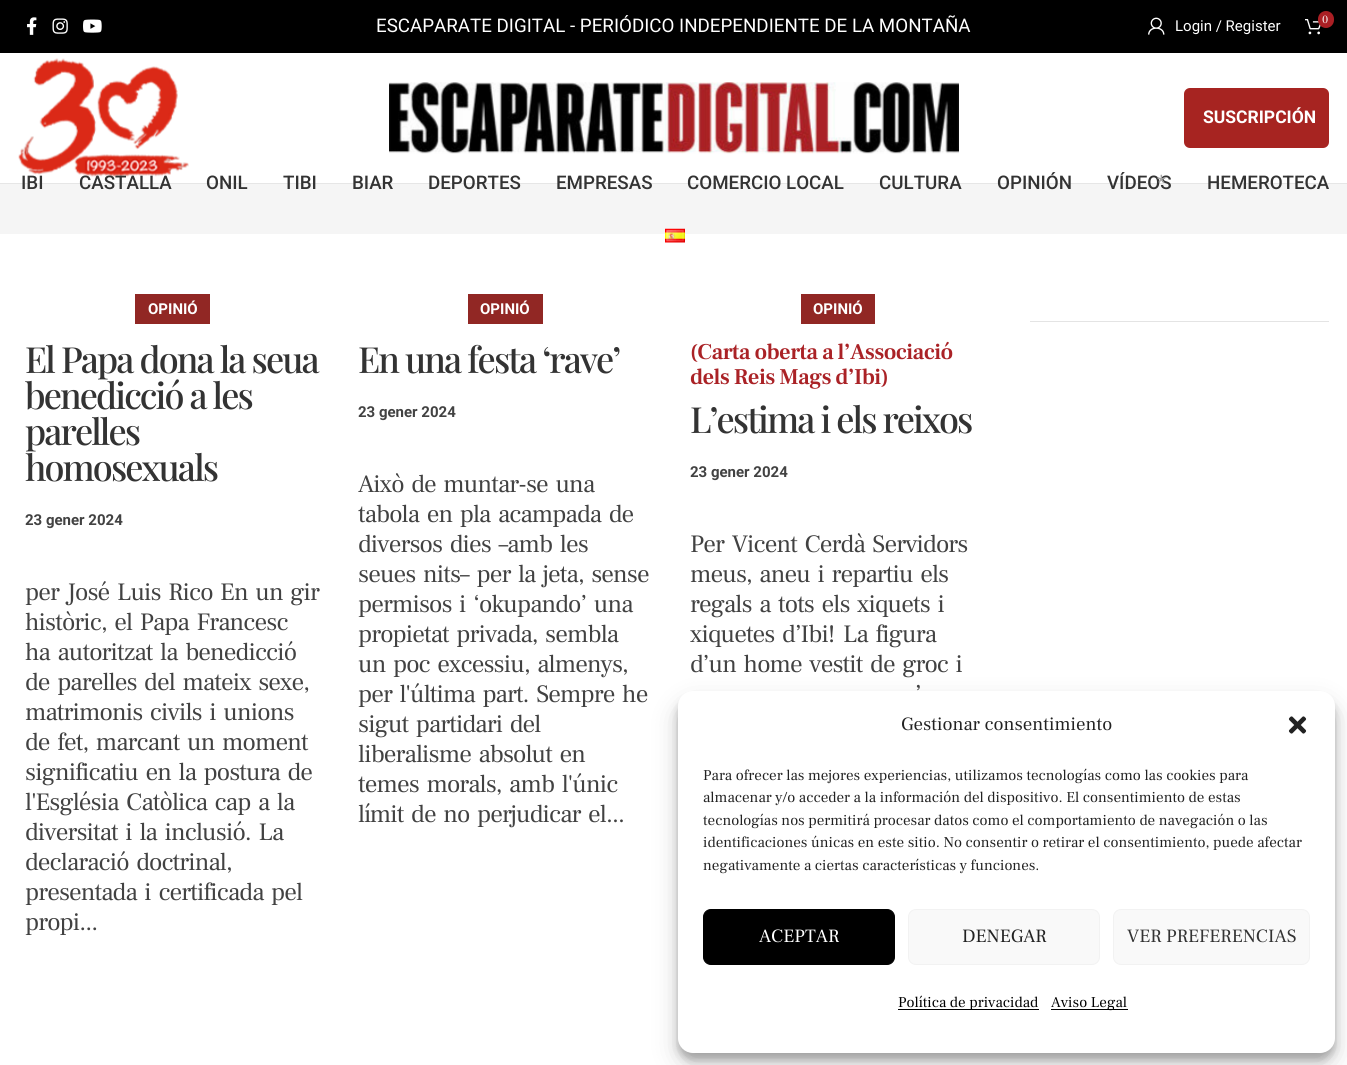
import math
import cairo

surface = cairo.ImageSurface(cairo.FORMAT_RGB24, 1347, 1065)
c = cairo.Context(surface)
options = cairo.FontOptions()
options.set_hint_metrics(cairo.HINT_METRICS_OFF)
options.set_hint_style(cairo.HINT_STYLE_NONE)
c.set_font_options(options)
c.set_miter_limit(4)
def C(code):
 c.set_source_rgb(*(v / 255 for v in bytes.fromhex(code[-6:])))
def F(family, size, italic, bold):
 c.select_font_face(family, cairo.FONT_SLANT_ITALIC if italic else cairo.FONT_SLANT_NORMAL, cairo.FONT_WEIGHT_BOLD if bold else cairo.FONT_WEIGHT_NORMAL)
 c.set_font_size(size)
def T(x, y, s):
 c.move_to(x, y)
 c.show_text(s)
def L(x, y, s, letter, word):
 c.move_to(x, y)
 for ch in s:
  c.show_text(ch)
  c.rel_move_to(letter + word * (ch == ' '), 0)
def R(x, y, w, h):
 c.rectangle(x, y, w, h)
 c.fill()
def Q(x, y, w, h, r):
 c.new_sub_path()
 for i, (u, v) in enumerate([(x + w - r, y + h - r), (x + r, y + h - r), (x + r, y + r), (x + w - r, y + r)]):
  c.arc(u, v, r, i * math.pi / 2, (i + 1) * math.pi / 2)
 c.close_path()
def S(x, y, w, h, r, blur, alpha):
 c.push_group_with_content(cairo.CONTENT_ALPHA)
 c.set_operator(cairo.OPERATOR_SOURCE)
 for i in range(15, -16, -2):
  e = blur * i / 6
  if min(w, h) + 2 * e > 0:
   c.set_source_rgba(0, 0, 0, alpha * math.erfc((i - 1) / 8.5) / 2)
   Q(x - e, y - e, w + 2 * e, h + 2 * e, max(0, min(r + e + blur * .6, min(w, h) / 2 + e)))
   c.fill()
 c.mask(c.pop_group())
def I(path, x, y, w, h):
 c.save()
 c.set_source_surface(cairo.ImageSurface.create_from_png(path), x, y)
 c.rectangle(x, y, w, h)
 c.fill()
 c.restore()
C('ffffff')
c.paint()
C('000000')
R(0,0,1347,53)
I('1.png',27,17,10,18)
I('2.png',52,18,16,16)
I('3.png',83,19,19,14)
F('Roboto',18.75,0,0)
C('ffffff')
T(376,32,'ESCAPARATE DIGITAL - PERIÓDICO INDEPENDIENTE DE LA MONTAÑA')
I('4.png',1148,17,17,18)
F('Roboto',15,0,0)
T(1175,31,'Login / Register')
C('e6e6e6')
R(0,183,1347,1)
C('f5f5f5')
R(0,184,1347,50)
F('Roboto Medium',18.75,0,0)
C('333333')
T(1107,189,'VÍDEOS')
F('Roboto',20,0,0)
C('a5a5a5')
T(1157,189,'*')
I('5.png',1305,19,16,16)
C('aa1f24')
Q(1318,11,16,17,8)
c.fill()
F('Frank Ruhl Libre',11,0,0)
C('ffffff')
T(1322,23,'0')
I('6.png',18,58,171,119)
I('7.png',389,82,570,72)
C('a72421')
Q(1184,88,145,60,6)
c.fill()
F('Roboto',17.5,0,1)
C('ffffff')
T(1203,123,'SUSCRIPCIÓN')
F('Roboto Medium',18.75,0,0)
C('333333')
T(21,189,'IBI')
T(79,189,'CASTALLA')
T(206,189,'ONIL')
T(283,189,'TIBI')
T(352,189,'BIAR')
T(428,189,'DEPORTES')
T(556,189,'EMPRESAS')
T(687,189,'COMERCIO LOCAL')
T(879,189,'CULTURA')
T(997,189,'OPINIÓN')
T(1207,189,'HEMEROTECA')
I('8.png',665,228,20,15)
C('912724')
R(135,294,75,30)
F('Roboto',15,0,1)
C('ffffff')
T(148,314,'OPINIÓ')
F('Playfair Display Medium',36,0,0)
C('333333')
L(25,373,'El Papa dona la seua',-1.9,0)
L(25,409,'benedicció a les',-1.9,0)
L(25,445,'parelles',-1.9,0)
L(25,481,'homosexuals',-1.9,0)
F('Roboto',15,0,1)
C('424242')
T(25,525,'23 gener 2024')
F('Frank Ruhl Libre',25,0,0)
L(25,600,'per José Luis Rico En un gir',-.9,2.5)
L(25,630,'històric, el Papa Francesc',-.9,2.5)
L(25,660,'ha autoritzat la benedicció',-.9,2.5)
L(25,690,'de parelles del mateix sexe,',-.9,2.5)
L(25,720,'matrimonis civils i unions',-.9,2.5)
L(25,750,'de fet, marcant un moment',-.9,2.5)
L(25,780,'significatiu en la postura de',-.9,2.5)
L(25,810,'l\'Església Catòlica cap a la',-.9,2.5)
L(25,840,'diversitat i la inclusió. La',-.9,2.5)
L(25,870,'declaració doctrinal,',-.9,2.5)
L(25,900,'presentada i certificada pel',-.9,2.5)
L(25,930,'propi...',-.9,0)
C('912724')
R(468,294,75,30)
F('Roboto',15,0,1)
C('ffffff')
T(480,314,'OPINIÓ')
F('Playfair Display Medium',36,0,0)
C('333333')
L(358,373,'En una festa ‘rave’',-1.9,0)
F('Roboto',15,0,1)
C('424242')
T(358,417,'23 gener 2024')
F('Frank Ruhl Libre',25,0,0)
L(358,492,'Això de muntar-se una',-.9,2.5)
L(358,522,'tabola en pla acampada de',-.9,2.5)
L(358,552,'diversos dies –amb les',-.9,2.5)
L(358,582,'seues nits– per la jeta, sense',-.9,2.5)
L(358,612,'permisos i ‘okupando’ una',-.9,2.5)
L(358,642,'propietat privada, sembla',-.9,2.5)
L(358,672,'un poc excessiu, almenys,',-.9,2.5)
L(358,702,'per l\'última part. Sempre he',-.9,2.5)
L(358,732,'sigut partidari del',-.9,2.5)
L(358,762,'liberalisme absolut en',-.9,2.5)
L(358,792,'temes morals, amb l\'únic',-.9,2.5)
L(358,822,'límit de no perjudicar el...',-.9,2.5)
C('912724')
R(801,294,74,30)
F('Roboto',15,0,1)
C('ffffff')
T(813,314,'OPINIÓ')
F('Frank Ruhl Libre SemiBold',22.5,0,0)
C('aa2226')
L(690,359,'(Carta oberta a l’Associació',-.6,0)
L(690,384,'dels Reis Mags d’Ibi)',-.6,0)
F('Playfair Display Medium',36,0,0)
C('333333')
L(690,433,'L’estima i els reixos',-1.9,0)
F('Roboto',15,0,1)
C('424242')
T(690,477,'23 gener 2024')
F('Frank Ruhl Libre',25,0,0)
L(690,552,'Per Vicent Cerdà Servidors',-.9,2.5)
L(690,582,'meus, aneu i repartiu els',-.9,2.5)
L(690,612,'regals a tots els xiquets i',-.9,2.5)
L(690,642,'xiquetes d’Ibi!',-.9,2.5)
L(843,642,'La figura',-.9,2.5)
L(690,672,'d’un home vestit de groc i',-.9,2.5)
L(915,702,'’',-.9,2.5)
C('e4e4e4')
R(1030,321,299,1)
C('000000')
S(678,699,657,361,15,4,.23)
S(678,704,657,361,15,12.5,.19)
C('ffffff')
Q(678,691,657,362,15)
c.fill()
F('Frank Ruhl Libre',18.75,0,0)
C('222222')
T(901,730,'Gestionar consentimiento')
I('9.png',1288,716,19,18)
F('Frank Ruhl Libre',15,0,0)
T(703,780,'Para ofrecer las mejores experiencias, utilizamos tecnologías como las cookies para')
T(703,802,'almacenar y/o acceder a la información del dispositivo. El consentimiento de estas')
T(703,825,'tecnologías nos permitirá procesar datos como el comportamiento de navegación o las')
T(703,847,'identificaciones únicas en este sitio. No consentir o retirar el consentimiento, puede afectar')
T(703,870,'negativamente a ciertas características y funciones.')
C('000000')
Q(703.5,909.5,191,55,7.5)
c.fill_preserve()
c.set_line_width(1)
c.stroke()
F('Frank Ruhl Libre',18.75,0,0)
C('ffffff')
T(759,942,'ACEPTAR')
C('f9f9f9')
Q(908.5,909.5,191,55,7.5)
c.fill_preserve()
C('f2f2f2')
c.stroke()
C('222222')
T(962,942,'DENEGAR')
C('f9f9f9')
Q(1113.5,909.5,196,55,7.5)
c.fill_preserve()
C('f2f2f2')
c.stroke()
C('333333')
T(1127,942,'VER PREFERENCIAS')
C('000000')
R(898,1009,141,1)
F('Frank Ruhl Libre',15,0,0)
T(898,1007,'Política de privacidad')
R(1051,1009,77,1)
T(1051,1007,'Aviso Legal')
surface.write_to_png('o.png')
